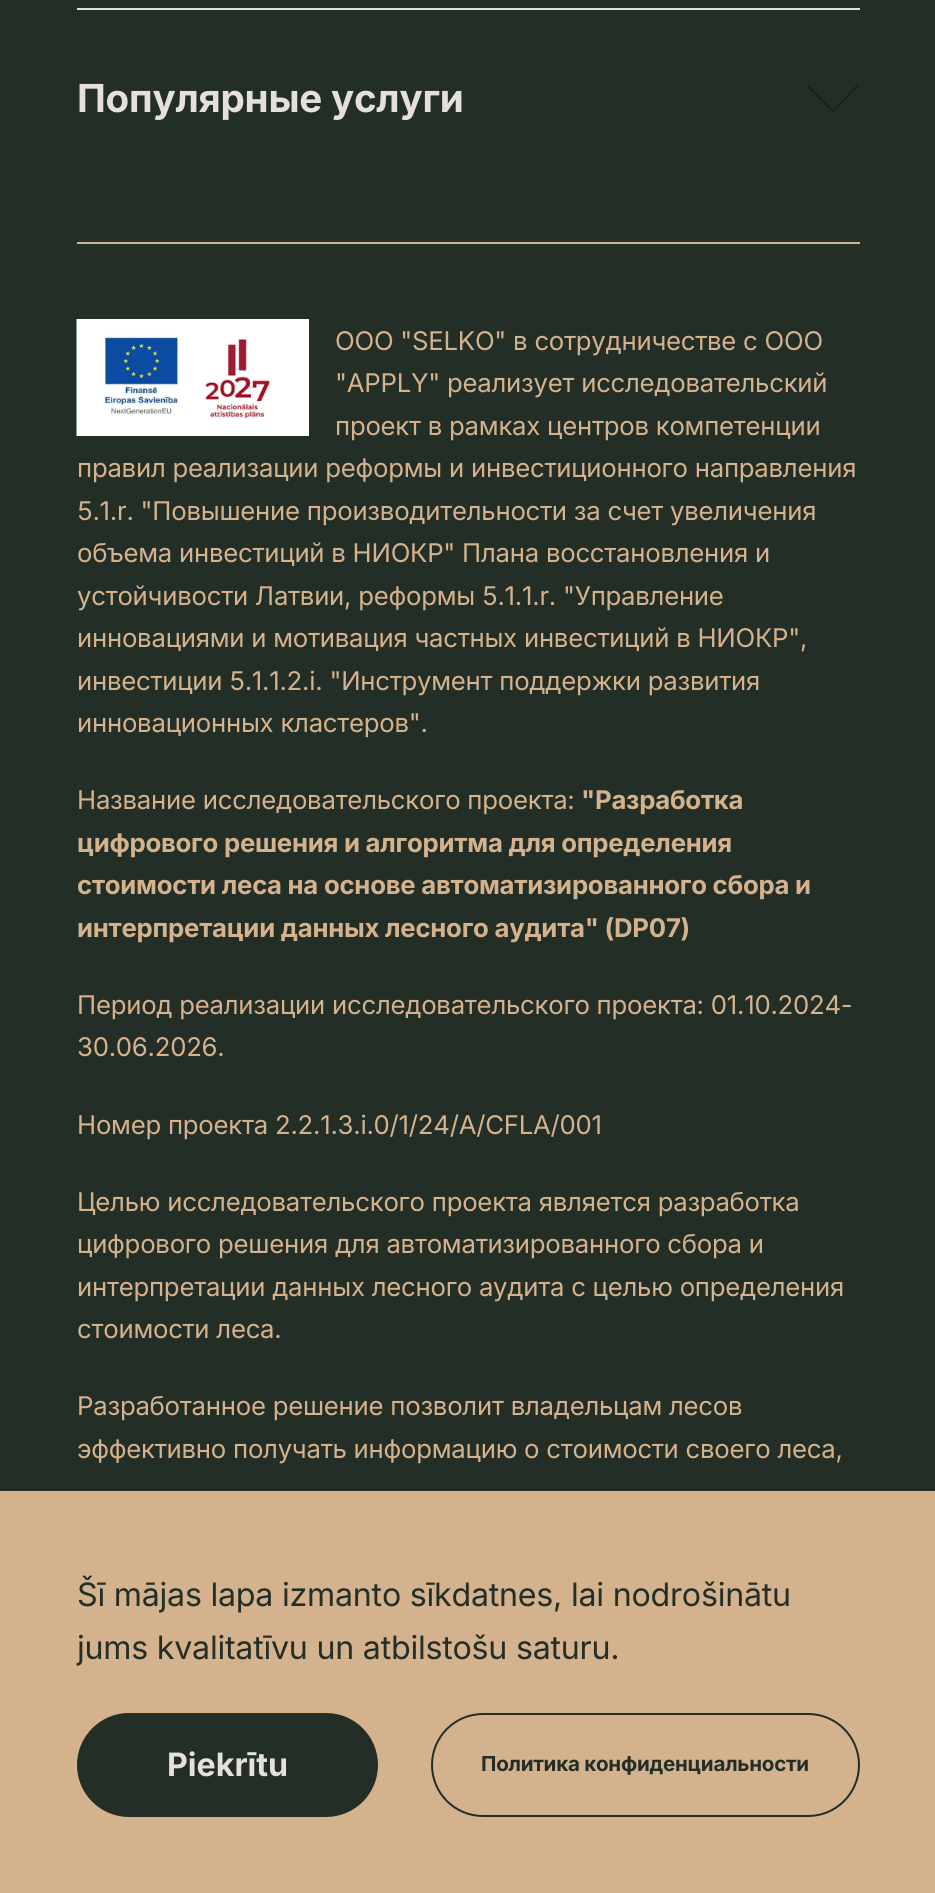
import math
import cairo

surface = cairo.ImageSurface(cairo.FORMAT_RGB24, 935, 1893)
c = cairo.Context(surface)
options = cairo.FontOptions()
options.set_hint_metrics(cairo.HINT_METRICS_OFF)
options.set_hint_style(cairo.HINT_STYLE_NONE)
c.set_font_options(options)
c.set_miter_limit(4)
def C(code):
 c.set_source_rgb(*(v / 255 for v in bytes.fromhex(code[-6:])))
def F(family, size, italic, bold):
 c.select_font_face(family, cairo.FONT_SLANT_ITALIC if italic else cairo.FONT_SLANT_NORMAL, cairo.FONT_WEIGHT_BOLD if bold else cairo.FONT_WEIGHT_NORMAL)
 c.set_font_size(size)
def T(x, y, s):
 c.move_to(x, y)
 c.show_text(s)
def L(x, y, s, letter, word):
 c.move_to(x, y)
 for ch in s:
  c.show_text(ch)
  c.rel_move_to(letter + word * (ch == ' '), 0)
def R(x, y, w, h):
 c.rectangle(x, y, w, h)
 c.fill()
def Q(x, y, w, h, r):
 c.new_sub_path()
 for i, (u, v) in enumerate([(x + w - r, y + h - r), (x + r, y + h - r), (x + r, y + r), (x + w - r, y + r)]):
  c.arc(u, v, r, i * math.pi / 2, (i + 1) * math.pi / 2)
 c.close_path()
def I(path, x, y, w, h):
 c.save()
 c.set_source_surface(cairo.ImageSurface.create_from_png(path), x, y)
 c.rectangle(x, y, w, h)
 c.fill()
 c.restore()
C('232e27')
c.paint()
C('e6e0db')
R(77,8,783,2)
F('Inter',38.6,0,1)
L(77,112,'Популярные услуги',-.25,0)
C('1a1a1a')
c.new_path()
c.move_to(832,111)
c.line_to(833,112)
c.line_to(858,86)
c.line_to(857,85)
c.line_to(833,110)
c.line_to(808,85)
c.line_to(807,86)
c.close_path()
c.fill()
C('d4b28d')
R(77,242,783,2)
I('1.png',76,319,233,117)
F('Inter',25.75,0,0)
L(335,350,'ООО "SELKO" в сотрудничестве с ООО',-.25,0)
L(335,392,'"APPLY" реализует исследовательский',-.25,0)
L(335,435,'проект в рамках центров компетенции',-.25,0)
L(77,477,'правил реализации реформы и инвестиционного направления',-.25,0)
L(77,520,'5.1.r. "Повышение производительности за счет увеличения',-.25,0)
L(77,562,'объема инвестиций в НИОКР" Плана восстановления и',-.25,0)
L(77,605,'устойчивости Латвии, реформы 5.1.1.r. "Управление',-.25,0)
L(77,647,'инновациями и мотивация частных инвестиций в НИОКР",',-.25,0)
L(77,690,'инвестиции 5.1.1.2.i. "Инструмент поддержки развития',-.25,0)
L(77,732,'инновационных кластеров".',-.25,0)
L(77,809,'Название исследовательского проекта:',-.25,0)
F('Inter',25.75,0,1)
L(581,809,'"Разработка',-.25,0)
L(77,852,'цифрового решения и алгоритма для определения',-.25,0)
L(77,894,'стоимости леса на основе автоматизированного сбора и',-.25,0)
L(77,937,'интерпретации данных лесного аудита" (DP07)',-.25,0)
F('Inter',25.75,0,0)
L(77,1014,'Период реализации исследовательского проекта: 01.10.2024-',-.25,0)
L(77,1056,'30.06.2026.',-.25,0)
L(77,1134,'Номер проекта 2.2.1.3.i.0/1/24/A/CFLA/001',-.25,0)
L(77,1211,'Целью исследовательского проекта является разработка',-.25,0)
L(77,1253,'цифрового решения для автоматизированного сбора и',-.25,0)
L(77,1296,'интерпретации данных лесного аудита с целью определения',-.25,0)
L(77,1338,'стоимости леса.',-.25,0)
L(77,1415,'Разработанное решение позволит владельцам лесов',-.25,0)
L(77,1458,'эффективно получать информацию о стоимости своего леса,',-.25,0)
R(0,1491,935,402)
F('Inter',32.2,0,0)
C('232e27')
L(77,1606,'Šī mājas lapa izmanto sīkdatnes, lai nodrošinātu',-.25,0)
L(77,1659,'jums kvalitatīvu un atbilstošu saturu.',-.25,0)
Q(77,1713,301,104,52)
c.fill()
F('Inter',32.2,0,1)
C('e6e0db')
T(167,1776,'Piekrītu')
Q(432,1714,427,102,51)
C('232e27')
c.stroke()
F('Inter',20.6,0,1)
L(481,1771,'Политика конфиденциальности',-.25,0)
surface.write_to_png('o.png')
